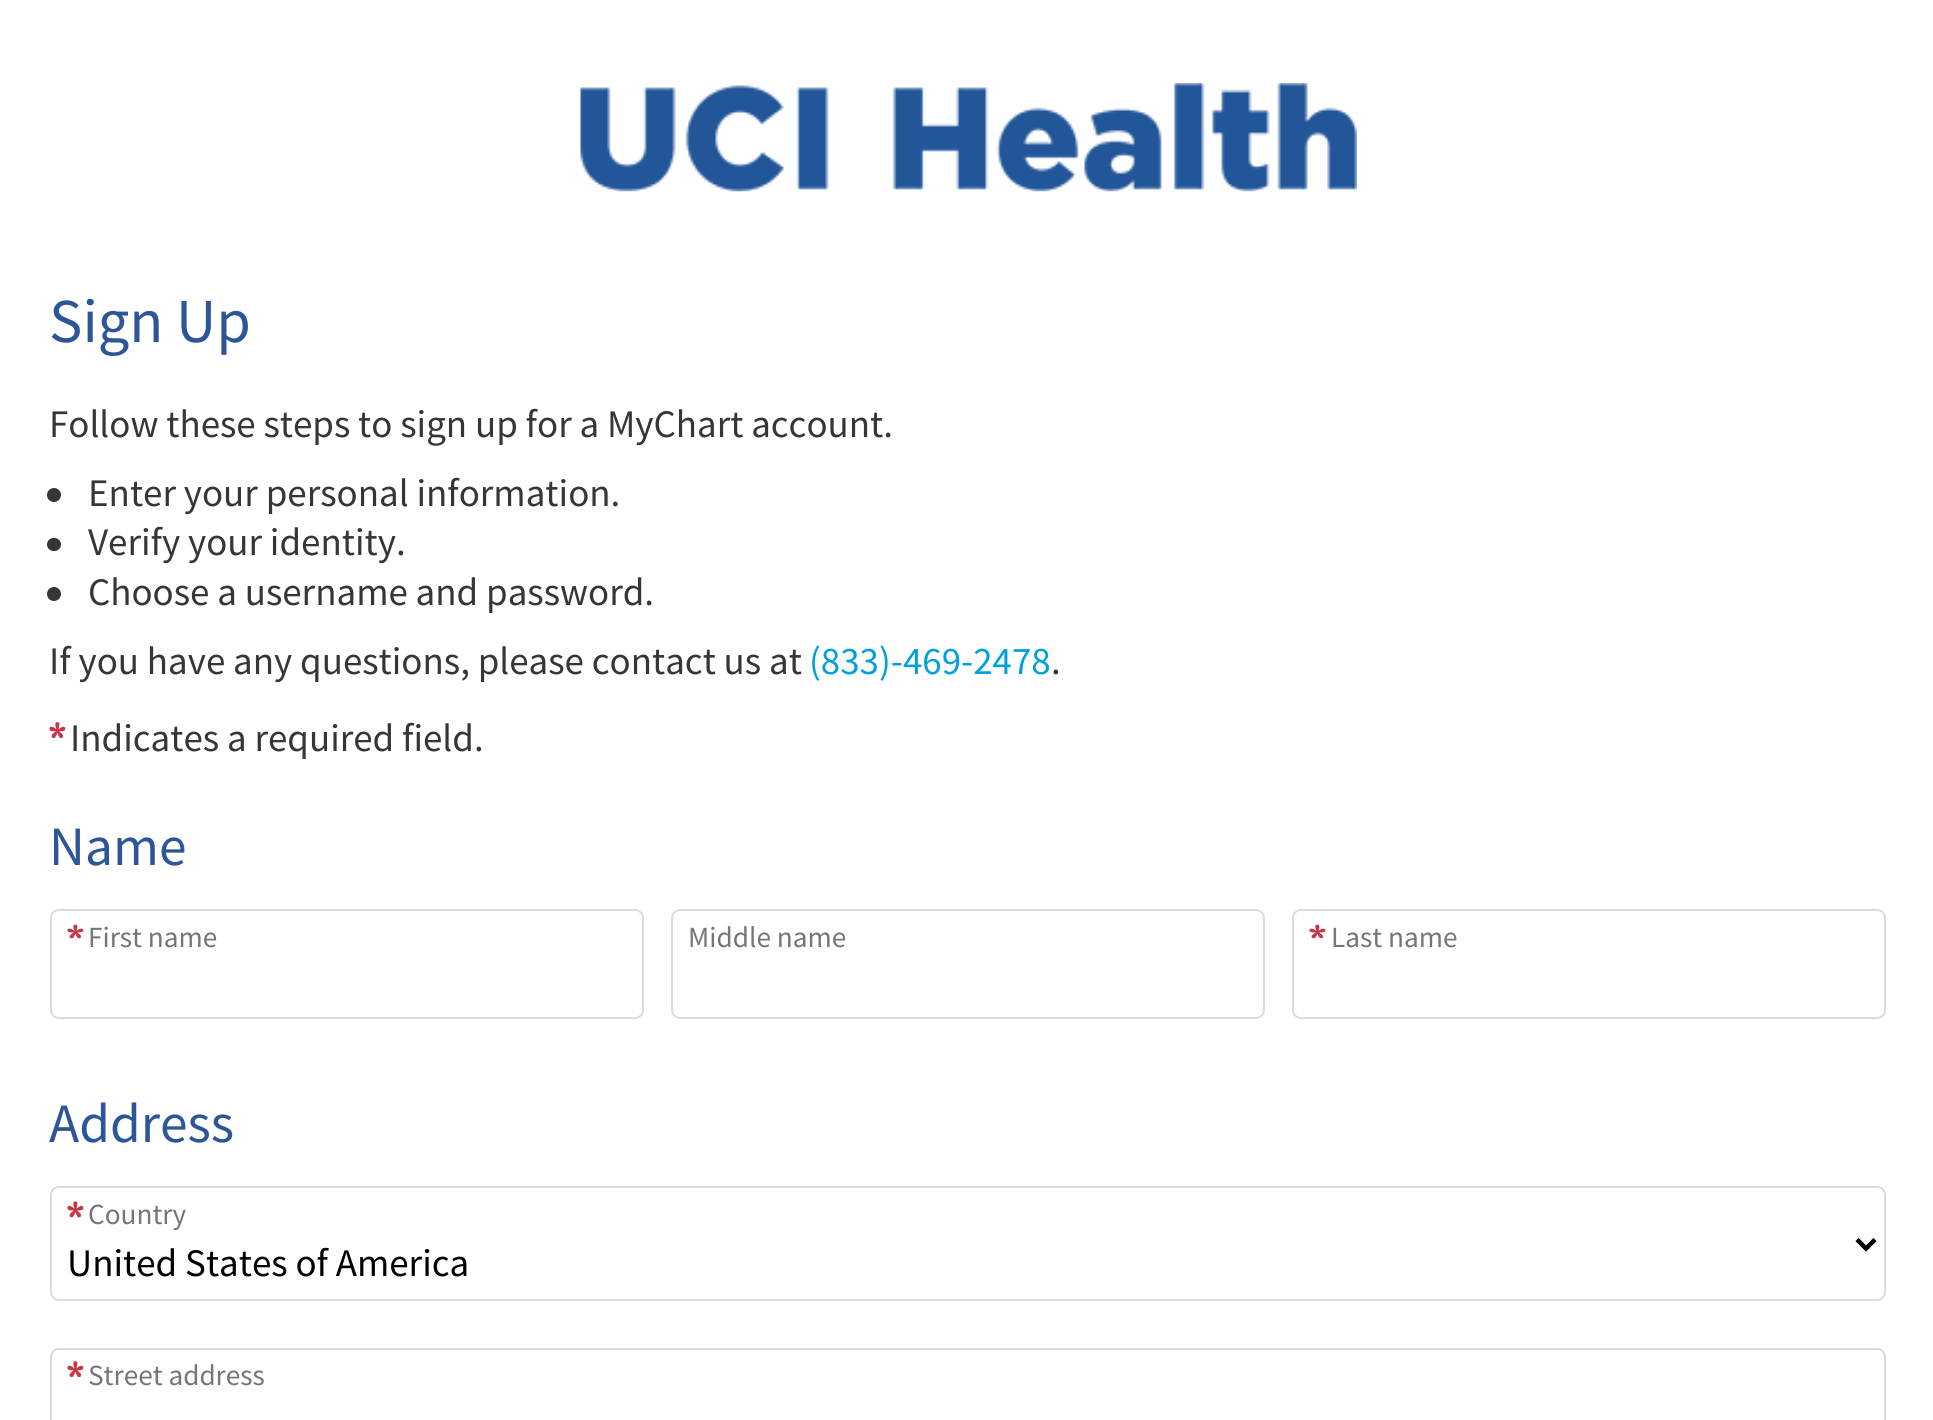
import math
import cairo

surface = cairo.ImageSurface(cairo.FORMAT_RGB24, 1933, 1420)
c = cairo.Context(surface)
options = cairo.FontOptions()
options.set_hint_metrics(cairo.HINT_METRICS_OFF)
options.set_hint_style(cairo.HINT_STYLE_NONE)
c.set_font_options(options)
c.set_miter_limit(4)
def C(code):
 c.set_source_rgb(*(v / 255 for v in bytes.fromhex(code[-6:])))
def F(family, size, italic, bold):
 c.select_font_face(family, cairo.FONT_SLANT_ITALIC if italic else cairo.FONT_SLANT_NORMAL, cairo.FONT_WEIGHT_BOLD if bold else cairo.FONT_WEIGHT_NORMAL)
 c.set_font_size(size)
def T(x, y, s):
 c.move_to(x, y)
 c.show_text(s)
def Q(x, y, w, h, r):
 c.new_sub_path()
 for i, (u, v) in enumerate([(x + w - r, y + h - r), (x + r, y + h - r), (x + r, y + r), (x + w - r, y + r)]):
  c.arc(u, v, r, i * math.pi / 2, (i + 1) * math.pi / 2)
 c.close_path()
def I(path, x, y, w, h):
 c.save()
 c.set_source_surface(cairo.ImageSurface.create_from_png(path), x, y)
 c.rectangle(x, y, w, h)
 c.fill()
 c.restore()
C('ffffff')
c.paint()
I('1.png',580,83,777,109)
F('Source Sans Pro',62.5,0,0)
C('2c5697')
T(49,342,'Sign Up')
F('Source Sans Pro',39,0,0)
C('363636')
T(49,437,'Follow these steps to sign up for a MyChart account.')
c.new_path()
c.arc(54,495,7,0,2 * math.pi)
c.fill()
T(88,506,'Enter your personal information.')
Q(47,538,14,13,6.5)
c.fill()
T(88,555,'Verify your identity.')
c.new_path()
c.arc(54,594,7,0,2 * math.pi)
c.fill()
T(88,605,'Choose a username and password.')
T(49,674,'If you have any questions, please contact us at')
C('00a1db')
T(809,674,'(833)-469-2478')
C('363636')
T(1051,674,'.')
I('2.png',49,722,17,16)
T(70,751,'Indicates a required field.')
F('Source Sans Pro',55.5,0,0)
C('2c5697')
T(49,865,'Name')
Q(51,910,592,108,8)
C('dbdbdb')
c.stroke()
I('3.png',67,924,17,15)
F('Source Sans Pro',29.25,0,0)
C('767676')
T(88,947,'First name')
Q(672,910,592,108,8)
C('dbdbdb')
c.stroke()
C('767676')
T(688,947,'Middle name')
Q(1293,910,592,108,8)
C('dbdbdb')
c.stroke()
I('3.png',1309,924,17,15)
C('767676')
T(1331,947,'Last name')
F('Source Sans Pro',55.5,0,0)
C('2c5697')
T(49,1142,'Address')
Q(51,1187,1834,113,8)
C('dbdbdb')
c.stroke()
I('4.png',67,1201,17,17)
F('Source Sans Pro',29.25,0,0)
C('767676')
T(88,1224,'Country')
c.new_path()
c.move_to(1857,1239.5)
c.line_to(1866,1248.5)
c.line_to(1875,1239.5)
C('000000')
c.set_line_width(4.5)
c.stroke()
F('Source Sans Pro',39,0,0)
T(67,1276,'United States of America')
Q(51,1349,1834,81,8)
C('dbdbdb')
c.set_line_width(2)
c.stroke()
I('2.png',67,1361,17,16)
F('Source Sans Pro',29.25,0,0)
C('767676')
T(88,1385,'Street address')
surface.write_to_png('o.png')
